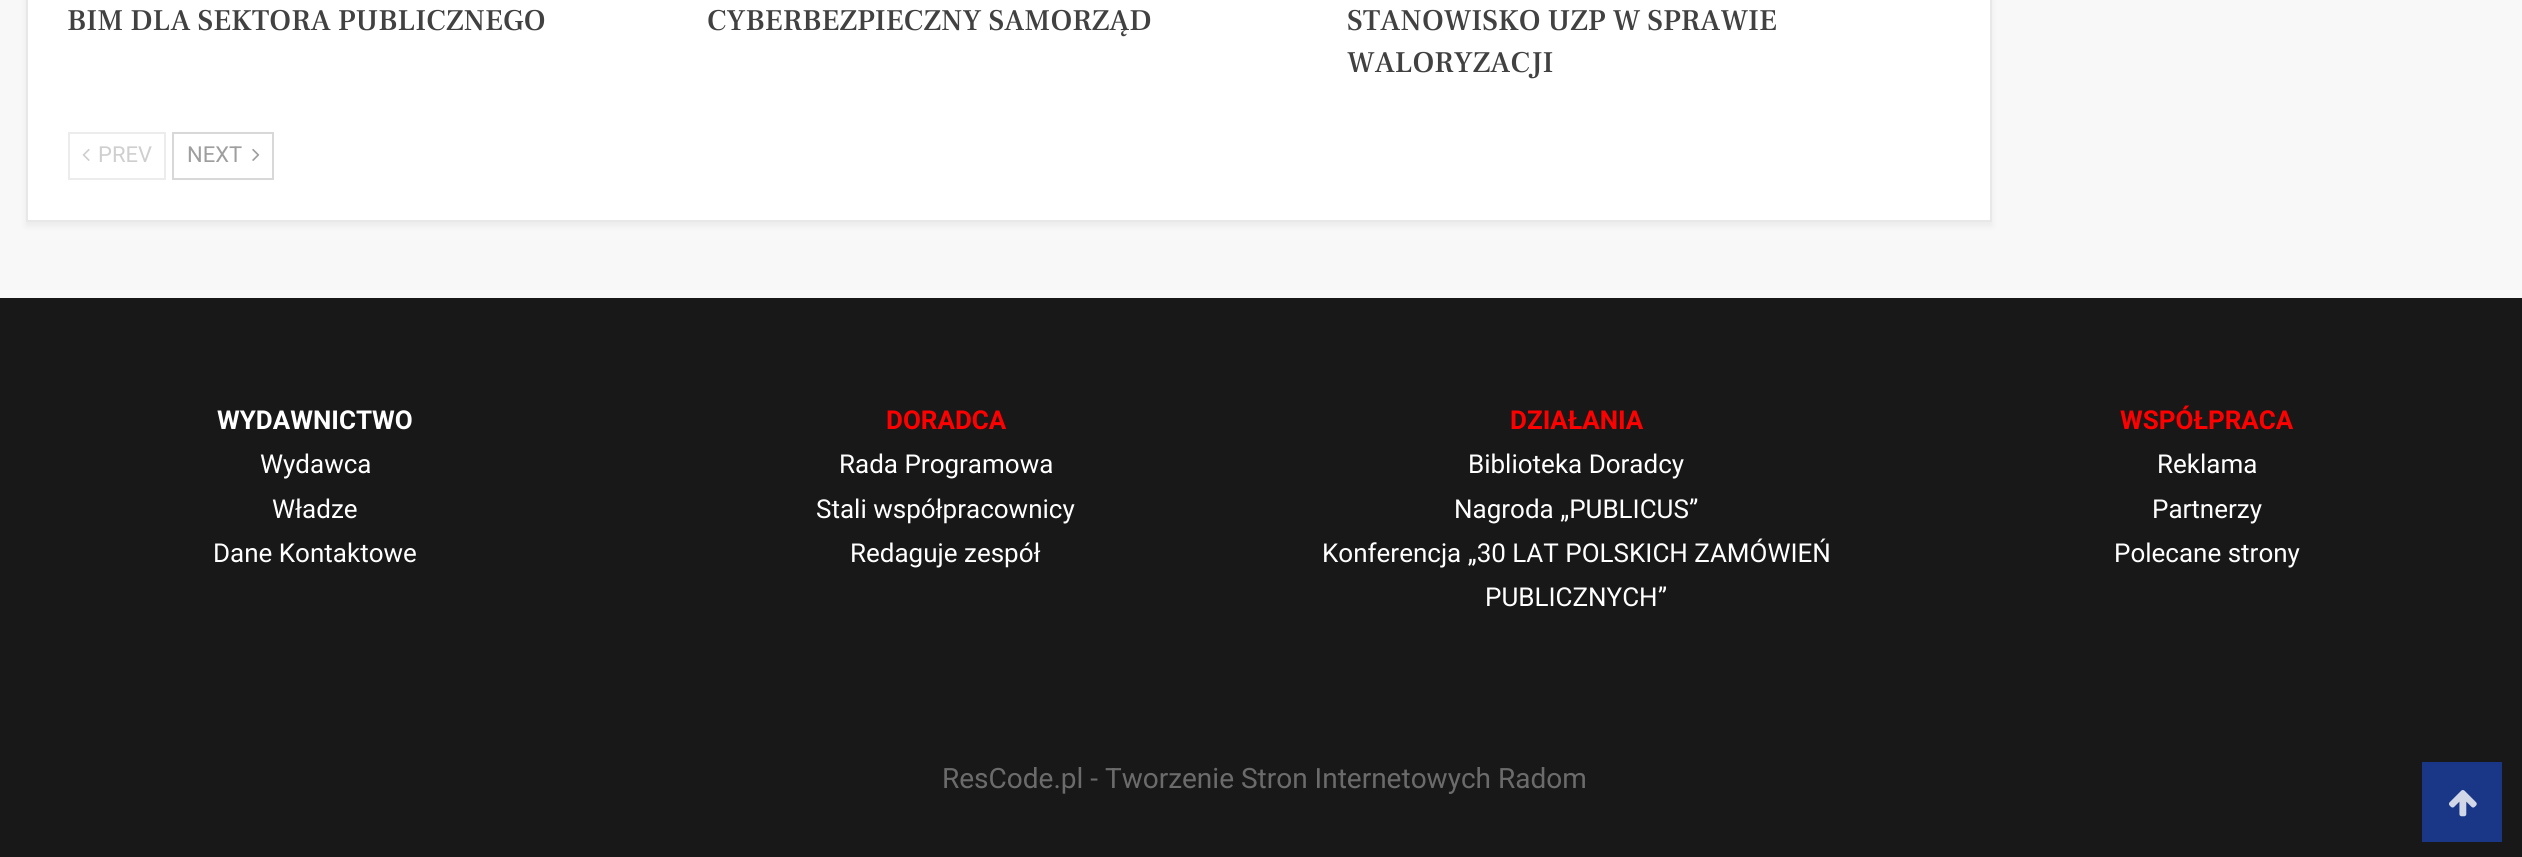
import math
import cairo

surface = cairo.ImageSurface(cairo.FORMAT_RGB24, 2522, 857)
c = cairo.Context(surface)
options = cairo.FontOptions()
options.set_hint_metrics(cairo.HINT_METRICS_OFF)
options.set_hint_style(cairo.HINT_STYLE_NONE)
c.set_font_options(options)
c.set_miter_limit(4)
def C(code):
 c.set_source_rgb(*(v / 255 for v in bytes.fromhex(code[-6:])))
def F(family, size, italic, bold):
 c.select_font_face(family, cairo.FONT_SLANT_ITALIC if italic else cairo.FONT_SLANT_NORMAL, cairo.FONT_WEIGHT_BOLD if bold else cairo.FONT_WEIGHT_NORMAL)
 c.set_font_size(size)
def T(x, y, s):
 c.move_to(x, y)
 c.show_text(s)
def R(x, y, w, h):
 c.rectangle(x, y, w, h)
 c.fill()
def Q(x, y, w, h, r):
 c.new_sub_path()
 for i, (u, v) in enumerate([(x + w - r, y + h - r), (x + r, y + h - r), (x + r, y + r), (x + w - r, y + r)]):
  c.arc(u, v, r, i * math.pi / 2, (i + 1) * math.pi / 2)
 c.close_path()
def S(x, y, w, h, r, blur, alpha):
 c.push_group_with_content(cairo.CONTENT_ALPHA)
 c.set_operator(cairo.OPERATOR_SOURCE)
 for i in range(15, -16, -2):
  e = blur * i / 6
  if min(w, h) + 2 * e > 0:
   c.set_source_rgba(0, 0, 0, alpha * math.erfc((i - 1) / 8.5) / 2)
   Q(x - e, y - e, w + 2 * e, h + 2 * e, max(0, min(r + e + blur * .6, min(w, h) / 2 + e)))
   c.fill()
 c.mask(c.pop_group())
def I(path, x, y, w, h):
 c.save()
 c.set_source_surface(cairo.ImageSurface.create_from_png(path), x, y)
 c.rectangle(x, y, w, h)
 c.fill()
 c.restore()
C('f8f8f8')
c.paint()
C('cccccc')
S(26,-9,1966,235,0,3,.3)
C('ffffff')
c.rectangle(27,-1,1964,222)
c.fill_preserve()
C('e8e8e8')
c.stroke()
F('Frank Ruhl Libre Medium',30,0,0)
C('414141')
T(67,30,'BIM DLA SEKTORA PUBLICZNEGO')
T(707,30,'CYBERBEZPIECZNY SAMORZĄD')
T(1347,30,'STANOWISKO UZP W SPRAWIE')
T(1347,72,'WALORYZACJI')
c.rectangle(69,133,96,46)
C('ececec')
c.stroke()
I('1.png',82,148,8,13)
F('Roboto',22,0,0)
C('cfcfcf')
T(98,162,'PREV')
c.rectangle(173,133,100,46)
C('d8d8d8')
c.stroke()
C('9e9e9e')
T(187,162,'NEXT')
I('2.png',252,148,8,13)
C('181818')
R(0,298,2522,559)
F('Roboto',26,0,1)
C('ffffff')
T(217,429,'WYDAWNICTWO')
F('Roboto',26,0,0)
T(260,473,'Wydawca')
T(272,518,'Władze')
T(213,562,'Dane Kontaktowe')
F('Roboto',26,0,1)
C('ff0000')
T(886,429,'DORADCA')
F('Roboto',26,0,0)
C('ffffff')
T(839,473,'Rada Programowa')
T(816,518,'Stali współpracownicy')
T(850,562,'Redaguje zespół')
F('Roboto',26,0,1)
C('ff0000')
T(1510,429,'DZIAŁANIA')
F('Roboto',26,0,0)
C('ffffff')
T(1468,473,'Biblioteka Doradcy')
T(1454,518,'Nagroda „PUBLICUS”')
T(1322,562,'Konferencja „30 LAT POLSKICH ZAMÓWIEŃ')
T(1485,606,'PUBLICZNYCH”')
F('Roboto',26,0,1)
C('ff0000')
T(2120,429,'WSPÓŁPRACA')
F('Roboto',26,0,0)
C('ffffff')
T(2157,473,'Reklama')
T(2152,518,'Partnerzy')
T(2114,562,'Polecane strony')
F('Roboto',28,0,0)
C('6b6b6b')
T(942,788,'ResCode.pl - Tworzenie Stron Internetowych Radom')
C('1a3687')
R(2422,762,80,80)
I('3.png',2449,790,28,27)
surface.write_to_png('o.png')
